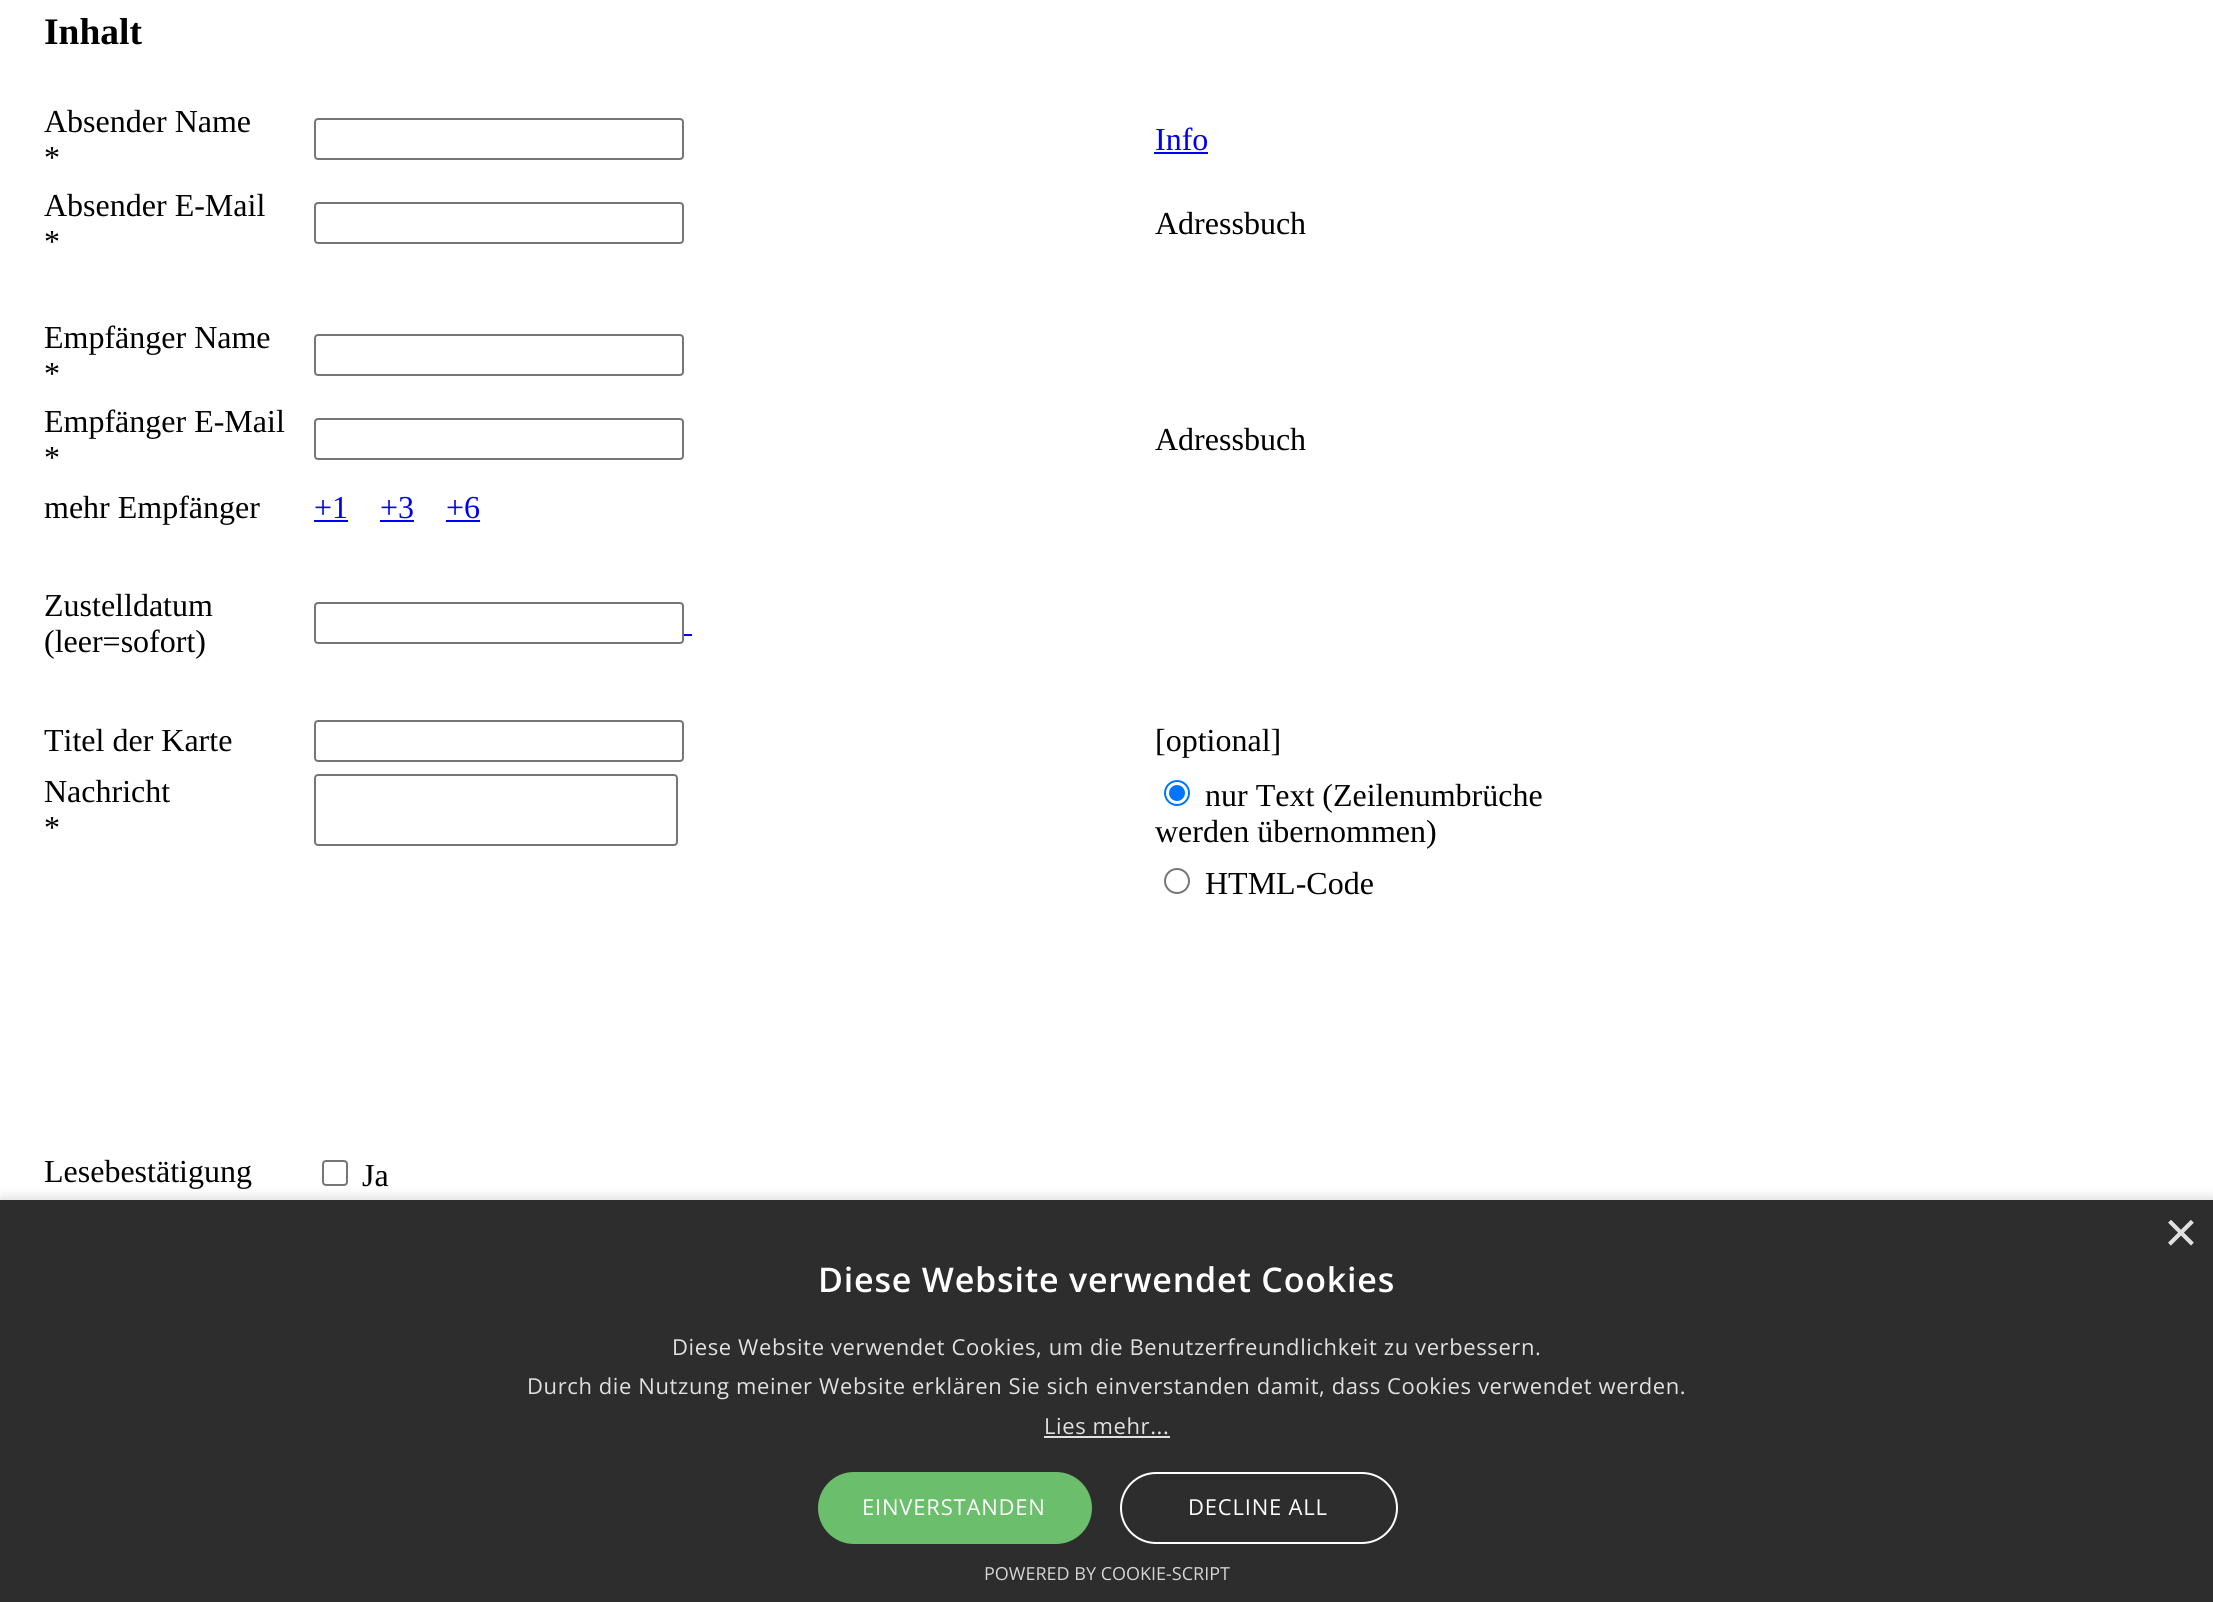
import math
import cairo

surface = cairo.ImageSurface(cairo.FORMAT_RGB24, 2213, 1602)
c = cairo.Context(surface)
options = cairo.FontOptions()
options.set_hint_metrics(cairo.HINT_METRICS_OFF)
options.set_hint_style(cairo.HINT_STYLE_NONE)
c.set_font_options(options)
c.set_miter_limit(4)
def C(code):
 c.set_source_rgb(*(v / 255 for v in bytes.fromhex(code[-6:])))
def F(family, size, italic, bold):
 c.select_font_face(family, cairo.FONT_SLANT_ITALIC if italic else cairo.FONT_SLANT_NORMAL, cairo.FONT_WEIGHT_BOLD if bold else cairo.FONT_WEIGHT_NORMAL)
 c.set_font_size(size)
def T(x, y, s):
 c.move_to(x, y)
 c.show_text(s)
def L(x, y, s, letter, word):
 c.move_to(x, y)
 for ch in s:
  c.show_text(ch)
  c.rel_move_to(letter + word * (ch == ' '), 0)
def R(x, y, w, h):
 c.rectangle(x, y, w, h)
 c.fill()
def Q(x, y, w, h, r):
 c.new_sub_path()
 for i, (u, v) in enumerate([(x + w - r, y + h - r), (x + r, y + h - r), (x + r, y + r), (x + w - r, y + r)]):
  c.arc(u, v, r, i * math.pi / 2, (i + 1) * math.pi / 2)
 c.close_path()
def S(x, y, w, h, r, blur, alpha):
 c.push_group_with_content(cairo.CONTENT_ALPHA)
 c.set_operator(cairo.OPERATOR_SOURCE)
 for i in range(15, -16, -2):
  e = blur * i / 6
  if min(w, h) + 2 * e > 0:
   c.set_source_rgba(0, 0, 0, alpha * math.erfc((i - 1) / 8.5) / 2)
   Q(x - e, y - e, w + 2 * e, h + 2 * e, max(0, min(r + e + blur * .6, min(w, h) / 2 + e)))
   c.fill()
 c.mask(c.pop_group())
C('ffffff')
c.paint()
F('Liberation Serif',37.5,0,1)
C('000000')
T(44,44,'Inhalt')
F('Liberation Serif',32,0,0)
T(44,132,'Absender Name')
T(44,168,'*')
Q(315,119,368,40,3)
C('767676')
c.stroke()
C('0000ee')
T(1155,150,'Info')
R(1154,152,54,2)
C('000000')
T(44,216,'Absender E-Mail')
T(44,252,'*')
Q(315,203,368,40,3)
C('767676')
c.stroke()
C('000000')
T(1155,234,'Adressbuch')
T(44,348,'Empfänger Name')
T(44,384,'*')
Q(315,335,368,40,3)
C('767676')
c.stroke()
C('000000')
T(44,432,'Empfänger E-Mail')
T(44,468,'*')
Q(315,419,368,40,3)
C('767676')
c.stroke()
C('000000')
T(1155,450,'Adressbuch')
T(44,518,'mehr Empfänger')
C('0000ee')
T(314,518,'+1')
R(314,520,34,2)
T(380,518,'+3')
R(380,520,34,2)
T(446,518,'+6')
R(446,520,34,2)
C('000000')
T(44,616,'Zustelldatum')
T(44,652,'(leer=sofort)')
Q(315,603,368,40,3)
C('767676')
c.stroke()
C('0000ee')
R(684,634,8,2)
C('000000')
T(44,751,'Titel der Karte')
Q(315,721,368,40,3)
C('767676')
c.stroke()
C('000000')
T(1155,751,'[optional]')
T(44,802,'Nachricht')
T(44,838,'*')
Q(315,775,362,70,3)
C('767676')
c.stroke()
c.arc(1177,793,12,0,2 * math.pi)
C('0075ff')
c.stroke()
c.arc(1177,793,8,0,2 * math.pi)
c.fill()
C('000000')
T(1205,806,'nur Text (Zeilenumbrüche')
T(1155,842,'werden übernommen)')
c.new_path()
c.arc(1177,881,12,0,2 * math.pi)
C('767676')
c.stroke()
C('000000')
T(1205,894,'HTML-Code')
T(44,1182,'Lesebestätigung')
Q(323,1161,24,24,3)
C('767676')
c.stroke()
C('000000')
T(362,1186,'Ja')
C('000000')
S(2,1204,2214,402,0,8,.35)
C('2d2d2d')
R(0,1200,2213,402)
F('Liberation Sans',58,0,0)
C('e0e0e0')
T(2164,1252,'×')
F('Open Sans SemiBold',34,0,0)
C('ffffff')
L(818,1292,'Diese Website verwendet Cookies',.8,0)
F('Open Sans',22,0,0)
C('e0e0e0')
L(672,1355,'Diese Website verwendet Cookies, um die Benutzerfreundlichkeit zu verbessern.',.6,0)
L(527,1394,'Durch die Nutzung meiner Website erklären Sie sich einverstanden damit, dass Cookies verwendet werden.',.6,0)
L(1044,1434,'Lies mehr...',.6,0)
R(1044,1436,126,2)
C('6bbe6b')
Q(818,1472,274,72,36)
c.fill()
C('ffffff')
L(862,1515,'EINVERSTANDEN',.8,0)
Q(1121,1473,276,70,35)
c.stroke()
L(1188,1515,'DECLINE ALL',.8,0)
F('Open Sans',18,0,0)
C('d5d5d5')
T(984,1580,'POWERED BY COOKIE-SCRIPT')
surface.write_to_png('o.png')
